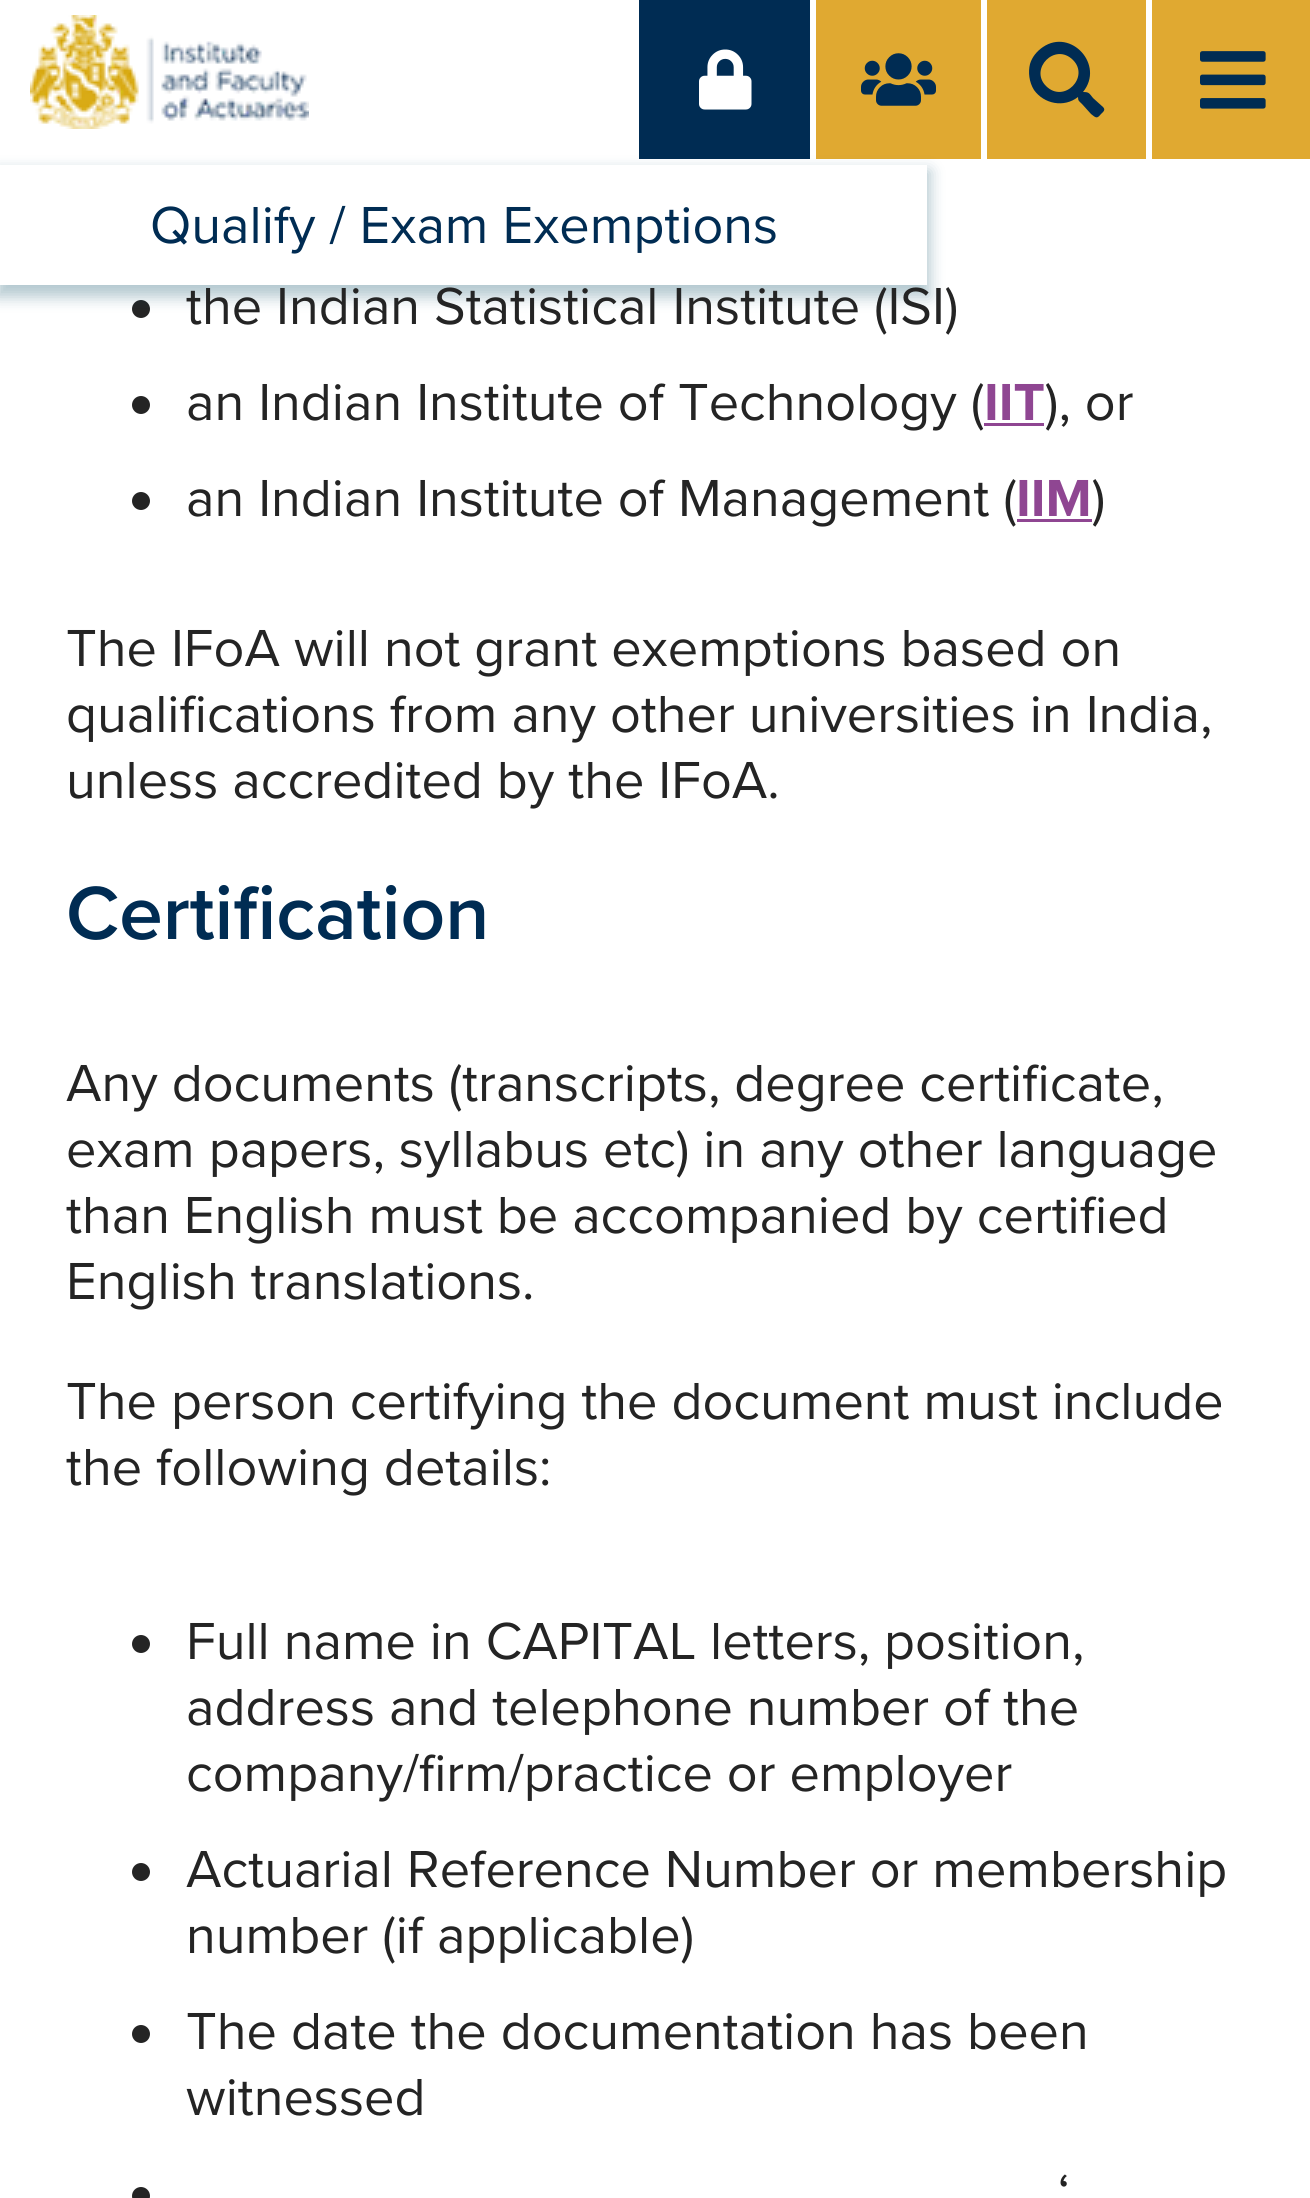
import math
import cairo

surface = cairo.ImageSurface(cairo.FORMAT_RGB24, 1310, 2198)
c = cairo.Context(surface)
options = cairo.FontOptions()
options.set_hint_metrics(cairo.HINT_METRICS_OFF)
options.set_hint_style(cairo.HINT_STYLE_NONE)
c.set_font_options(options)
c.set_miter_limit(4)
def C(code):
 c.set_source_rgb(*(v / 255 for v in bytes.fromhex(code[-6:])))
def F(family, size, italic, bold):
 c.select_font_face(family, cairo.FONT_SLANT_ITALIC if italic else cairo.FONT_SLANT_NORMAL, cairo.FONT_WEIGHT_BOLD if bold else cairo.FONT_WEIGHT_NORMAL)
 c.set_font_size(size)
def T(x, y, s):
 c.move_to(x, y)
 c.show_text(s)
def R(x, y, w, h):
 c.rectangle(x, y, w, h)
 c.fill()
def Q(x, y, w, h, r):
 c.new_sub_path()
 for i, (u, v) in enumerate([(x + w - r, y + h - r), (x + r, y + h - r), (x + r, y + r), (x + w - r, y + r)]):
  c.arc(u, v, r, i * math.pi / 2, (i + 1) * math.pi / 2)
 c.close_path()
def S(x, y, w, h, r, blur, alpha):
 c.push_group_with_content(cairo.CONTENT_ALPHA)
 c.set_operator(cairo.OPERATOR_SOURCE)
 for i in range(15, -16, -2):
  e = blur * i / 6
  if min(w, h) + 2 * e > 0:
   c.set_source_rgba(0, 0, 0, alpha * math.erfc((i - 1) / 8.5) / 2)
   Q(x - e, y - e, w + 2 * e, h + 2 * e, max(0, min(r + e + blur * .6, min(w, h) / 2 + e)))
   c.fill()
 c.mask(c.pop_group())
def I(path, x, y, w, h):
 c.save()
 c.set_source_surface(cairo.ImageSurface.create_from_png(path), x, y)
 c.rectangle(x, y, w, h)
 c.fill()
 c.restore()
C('ffffff')
c.paint()
I('1.png',30,15,279,114)
C('002c53')
R(639,0,171,159)
I('2.png',699,49,53,61)
C('e0a931')
R(816,0,165,159)
I('3.png',861,53,75,53)
R(987,0,159,159)
C('002c53')
c.new_path()
c.move_to(1103,107)
c.curve_to(1106,110,1103,112,1101,114)
c.curve_to(1097,119,1096,118,1091,114)
c.line_to(1082,104)
c.curve_to(1079,101,1078,101,1078,97)
c.curve_to(1064,108,1044,104,1034,90)
c.curve_to(1029,82,1028,72,1030,64)
c.curve_to(1032,57,1037,51,1043,47)
c.curve_to(1071,28,1105,65,1083,92)
c.curve_to(1089,92,1089,93,1093,98)
c.close_path()
c.move_to(1046,86)
c.curve_to(1064,104,1090,77,1073,60)
c.curve_to(1055,42,1029,69,1046,86)
c.close_path()
c.fill()
C('e0a931')
R(1152,0,158,159)
I('4.png',1200,51,66,58)
C('242424')
c.arc(141,309,9,0,2 * math.pi)
c.fill()
c.save()
c.set_fill_rule(cairo.FILL_RULE_EVEN_ODD)
c.new_path()
c.move_to(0,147)
c.line_to(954,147)
c.line_to(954,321)
c.line_to(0,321)
c.close_path()
c.move_to(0,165)
c.line_to(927,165)
c.line_to(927,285)
c.line_to(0,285)
c.close_path()
c.clip()
C('004660')
S(-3,171,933,126,0,7.5,.3)
c.restore()
F('Proxima Nova',54,0,0)
C('002c53')
T(150,243,'Qualify / Exam Exemptions')
C('242424')
T(186,324,'the Indian Statistical Institute (ISI)')
c.new_path()
c.arc(141,405,9,0,2 * math.pi)
c.fill()
T(186,420,'an Indian Institute of Technology (')
F('Proxima Nova',54,0,1)
C('8f4692')
T(984,420,'IIT')
R(984,423,60,3)
F('Proxima Nova',54,0,0)
C('242424')
T(1045,420,'), or')
c.new_path()
c.arc(141,501,9,0,2 * math.pi)
c.fill()
T(186,516,'an Indian Institute of Management (')
F('Proxima Nova',54,0,1)
C('8f4692')
T(1016,516,'IIM')
R(1017,519,75,3)
F('Proxima Nova',54,0,0)
C('242424')
T(1092,516,')')
T(66,666,'The IFoA will not grant exemptions based on')
T(66,732,'qualifications from any other universities in India,')
T(66,798,'unless accredited by the IFoA.')
F('Proxima Nova SemiBold',78,0,0)
C('002c53')
T(66,939,'Certification')
F('Proxima Nova',54,0,0)
C('242424')
T(66,1101,'Any documents (transcripts, degree certificate,')
T(66,1167,'exam papers, syllabus etc) in any other language')
T(66,1233,'than English must be accompanied by certified')
T(66,1299,'English translations.')
T(66,1419,'The person certifying the document must include')
T(66,1485,'the following details:')
c.new_path()
c.arc(141,1644,9,0,2 * math.pi)
c.fill()
T(186,1659,'Full name in CAPITAL letters, position,')
T(186,1725,'address and telephone number of the')
T(186,1791,'company/firm/practice or employer')
c.new_path()
c.arc(141,1872,9,0,2 * math.pi)
c.fill()
T(186,1887,'Actuarial Reference Number or membership')
T(186,1953,'number (if applicable)')
c.new_path()
c.arc(141,2034,9,0,2 * math.pi)
c.fill()
T(186,2049,'The date the documentation has been')
T(186,2115,'witnessed')
T(1058,2211,'‘')
c.new_path()
c.arc(141,2196,9,0,2 * math.pi)
c.fill()
surface.write_to_png('o.png')
